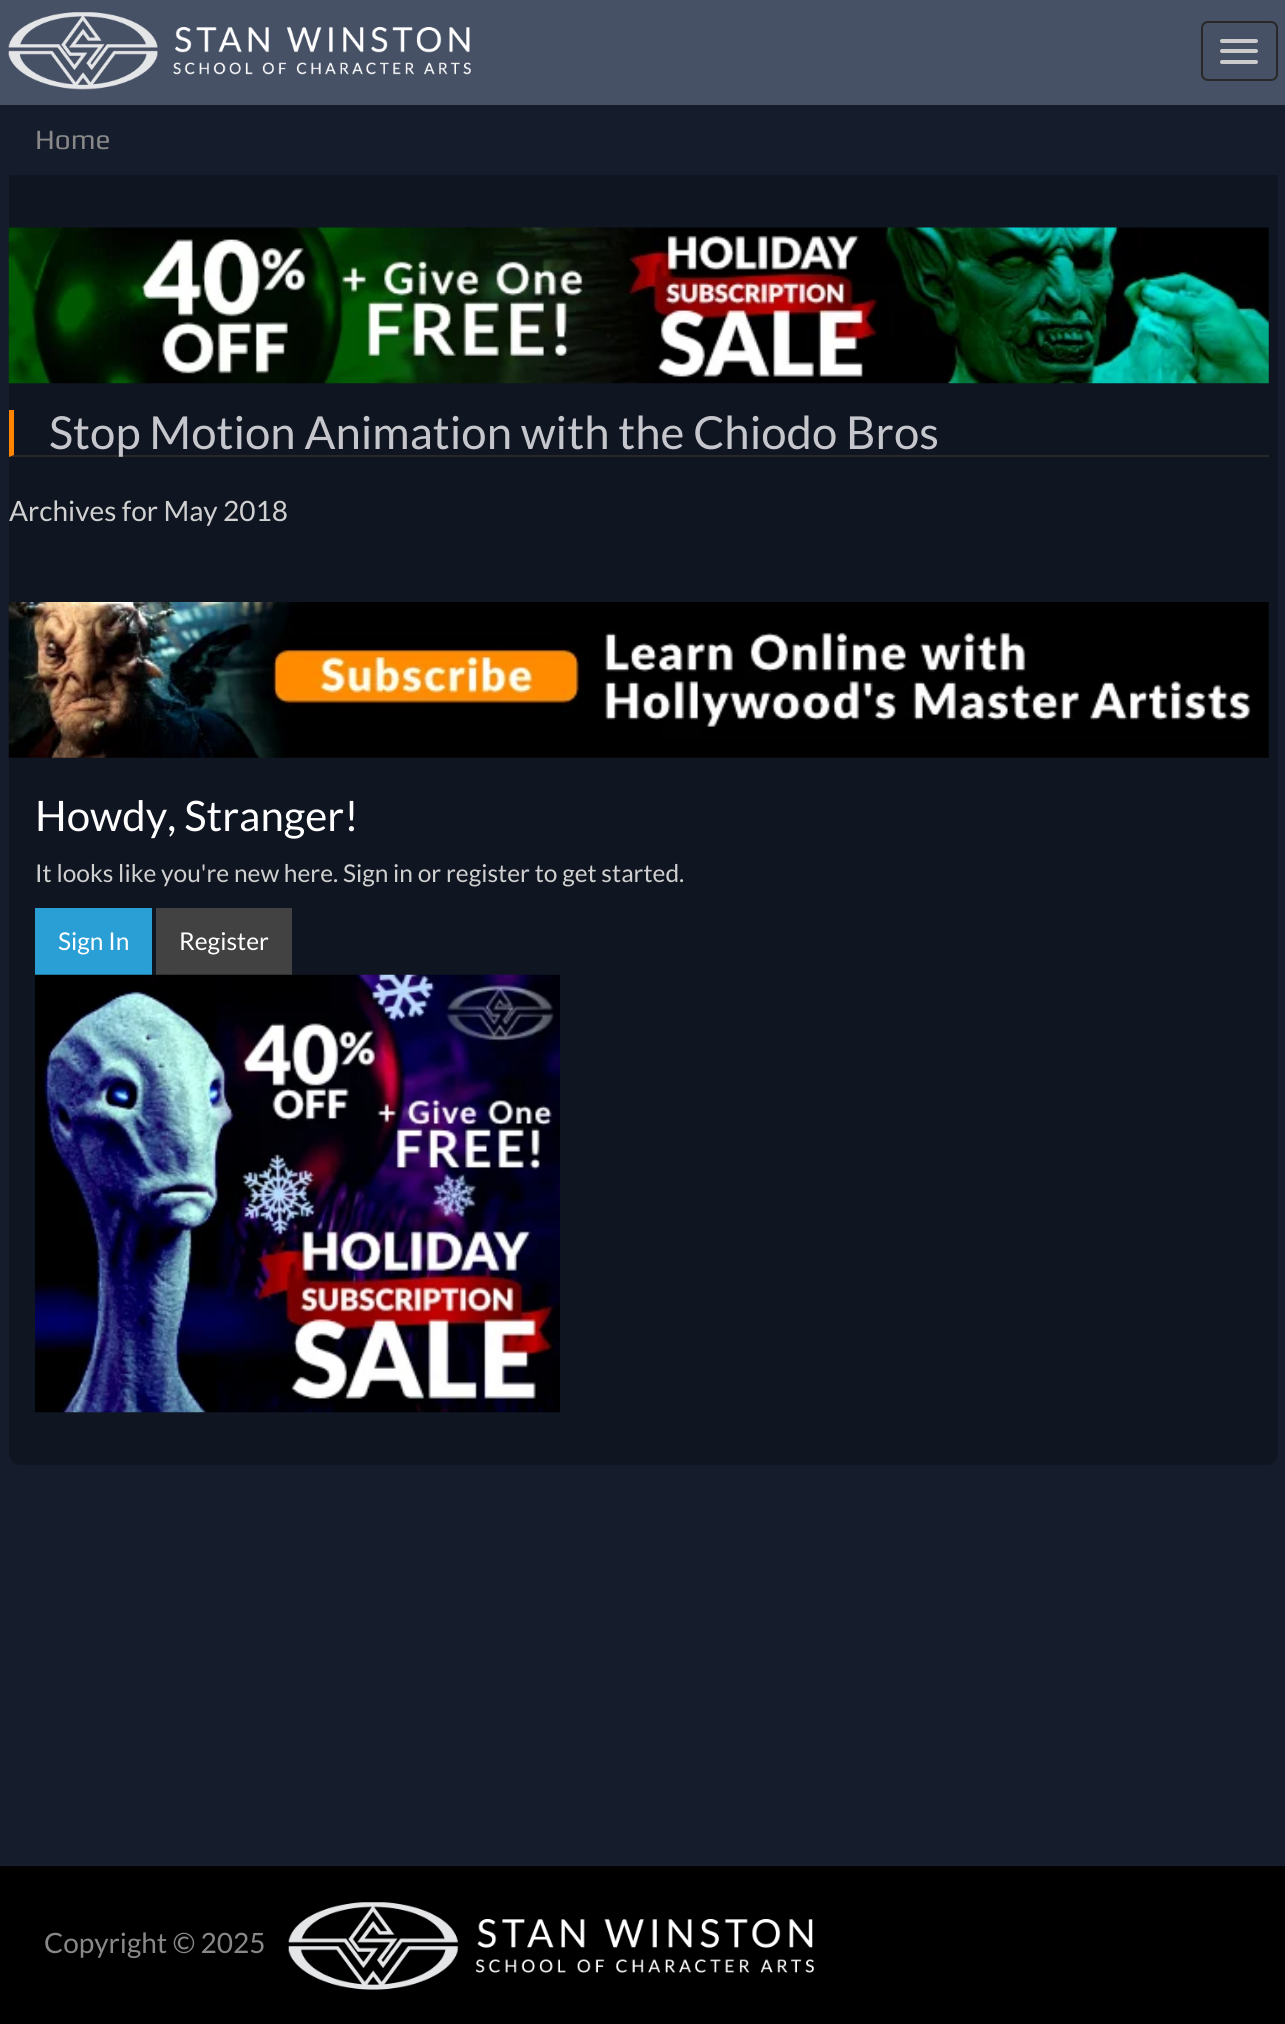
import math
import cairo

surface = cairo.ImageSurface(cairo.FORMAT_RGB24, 1285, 2024)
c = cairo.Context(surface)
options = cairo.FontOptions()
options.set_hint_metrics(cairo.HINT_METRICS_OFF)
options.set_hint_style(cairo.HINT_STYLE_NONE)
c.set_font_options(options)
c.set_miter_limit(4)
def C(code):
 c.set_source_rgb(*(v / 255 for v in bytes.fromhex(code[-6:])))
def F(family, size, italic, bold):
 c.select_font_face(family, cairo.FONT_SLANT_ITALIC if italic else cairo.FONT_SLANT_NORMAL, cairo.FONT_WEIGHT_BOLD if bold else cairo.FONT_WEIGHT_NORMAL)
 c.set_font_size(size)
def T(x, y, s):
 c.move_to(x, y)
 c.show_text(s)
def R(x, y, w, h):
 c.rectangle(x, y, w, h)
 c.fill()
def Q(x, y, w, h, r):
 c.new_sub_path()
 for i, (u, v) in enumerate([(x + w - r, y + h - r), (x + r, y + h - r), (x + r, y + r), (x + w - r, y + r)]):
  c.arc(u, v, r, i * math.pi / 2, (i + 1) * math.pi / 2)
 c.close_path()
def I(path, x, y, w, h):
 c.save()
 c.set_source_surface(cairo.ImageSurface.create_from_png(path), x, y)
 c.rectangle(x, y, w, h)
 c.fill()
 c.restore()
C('151c2b')
c.paint()
C('475166')
R(0,0,1285,105)
I('1.png',8,12,463,78)
Q(1202,22,75,58,6)
C('282828')
c.stroke()
C('cccccc')
Q(1220,39,38,4,2)
c.fill()
Q(1220,49,38,4,2)
c.fill()
Q(1220,60,38,4,2)
c.fill()
F('Play',28,0,0)
C('888888')
T(35,149,'Home')
C('0f1521')
c.new_path()
c.move_to(9,175)
c.line_to(1278,175)
c.line_to(1278,1454)
c.curve_to(1278,1460,1273,1465,1267,1465)
c.line_to(20,1465)
c.curve_to(14,1465,9,1460,9,1454)
c.close_path()
c.fill()
I('2.png',8,227,1261,157)
C('282828')
c.new_path()
c.move_to(1269,457)
c.line_to(9,457)
c.line_to(14,455)
c.line_to(1269,455)
c.close_path()
c.fill()
C('ff8400')
c.new_path()
c.move_to(9,457)
c.line_to(9,410)
c.line_to(14,410)
c.line_to(14,455)
c.close_path()
c.fill()
F('Lato',45.5,0,0)
C('c6c7cd')
T(49,449,'Stop Motion Animation with the Chiodo Bros')
F('Lato',28,0,0)
C('d0d0d0')
T(9,521,'Archives for May 2018')
I('3.png',8,602,1261,156)
F('Lato',42,0,0)
C('ffffff')
T(35,831,'Howdy, Stranger!')
F('Lato',24.5,0,0)
C('d0d0d0')
T(35,882,'It looks like you\'re new here. Sign in or register to get started.')
C('2a9fd6')
R(35,908,117,67)
C('ffffff')
T(58,950,'Sign In')
C('424242')
R(156,908,136,67)
C('ffffff')
T(179,950,'Register')
I('4.png',35,974,525,439)
C('000000')
R(0,1868,1285,156)
C('030303')
R(0,1866,1285,2)
F('Lato',28,0,0)
C('888888')
T(44,1953,'Copyright © 2025')
I('5.png',288,1902,526,88)
surface.write_to_png('o.png')
